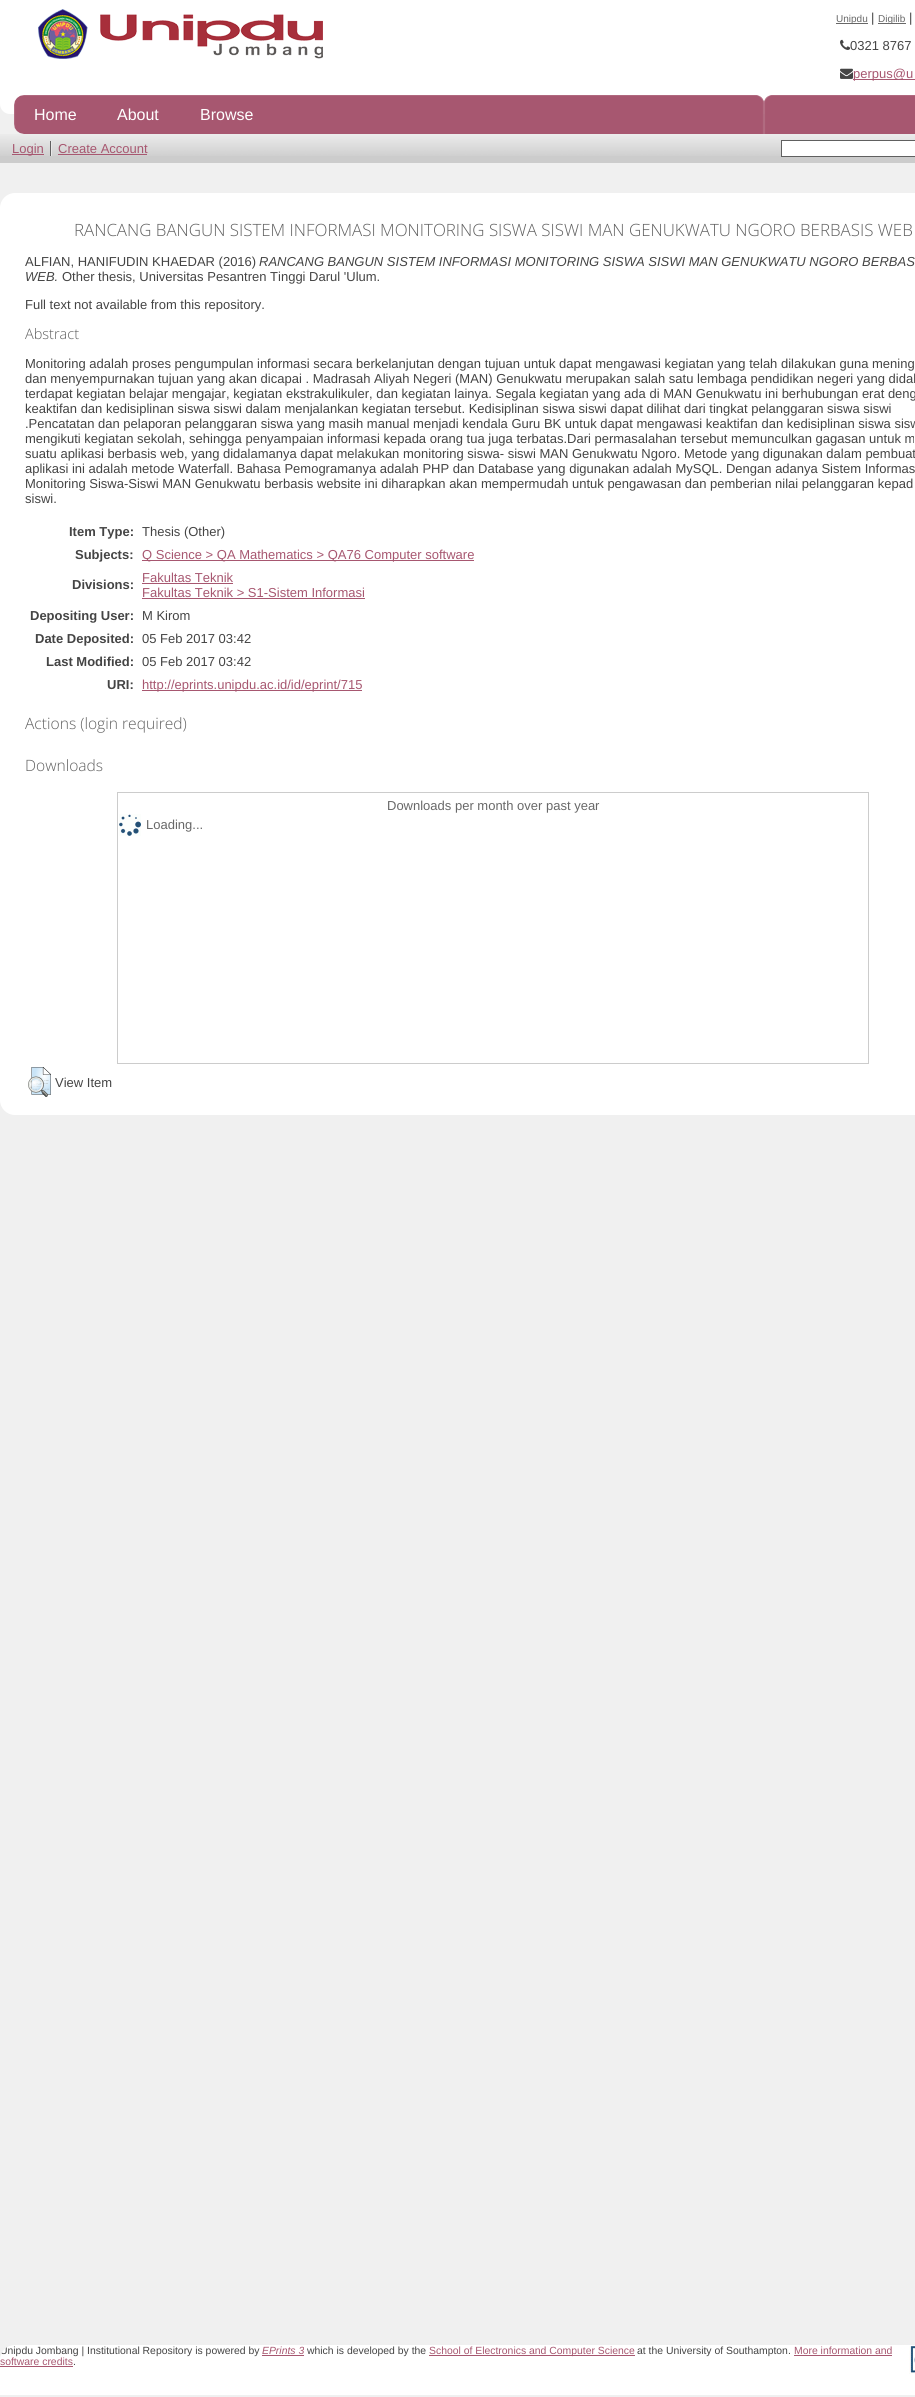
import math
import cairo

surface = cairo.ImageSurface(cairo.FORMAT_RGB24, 915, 2397)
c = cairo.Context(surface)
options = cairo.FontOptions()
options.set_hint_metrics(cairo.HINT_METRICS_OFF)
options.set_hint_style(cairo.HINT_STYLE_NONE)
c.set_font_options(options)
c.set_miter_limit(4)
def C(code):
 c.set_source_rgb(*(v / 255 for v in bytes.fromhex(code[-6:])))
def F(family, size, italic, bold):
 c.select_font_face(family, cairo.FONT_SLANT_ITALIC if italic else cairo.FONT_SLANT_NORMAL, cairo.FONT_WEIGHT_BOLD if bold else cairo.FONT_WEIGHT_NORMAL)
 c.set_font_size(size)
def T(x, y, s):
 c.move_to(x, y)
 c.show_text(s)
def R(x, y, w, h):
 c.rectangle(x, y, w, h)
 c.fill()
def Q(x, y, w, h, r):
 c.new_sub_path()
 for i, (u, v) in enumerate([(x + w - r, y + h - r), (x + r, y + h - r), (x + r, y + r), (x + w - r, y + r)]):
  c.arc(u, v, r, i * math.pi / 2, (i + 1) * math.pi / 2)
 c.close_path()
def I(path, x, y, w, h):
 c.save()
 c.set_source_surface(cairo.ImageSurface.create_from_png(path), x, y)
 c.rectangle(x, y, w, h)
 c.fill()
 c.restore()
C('f0f0f0')
c.paint()
C('ffffff')
c.new_path()
c.move_to(0,-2)
c.line_to(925,-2)
c.line_to(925,104)
c.curve_to(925,109.5,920.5,114,915,114)
c.line_to(10,114)
c.curve_to(4.5,114,0,109.5,0,104)
c.close_path()
c.fill()
I('1.png',38,9,285,50)
C('686868')
R(836,23,32,1)
F('Liberation Sans',10,0,0)
T(836,22,'Unipdu')
F('Liberation Sans',13,0,0)
C('444444')
T(871,22,'|')
C('686868')
R(878,23,28,1)
F('Liberation Sans',10,0,0)
T(878,22,'Digilib')
F('Liberation Sans',13,0,0)
C('444444')
T(909,22,'|')
T(850,50,'0321 8767')
I('2.png',840,39,11,11)
I('3.png',840,68,13,11)
C('a75770')
R(853,79,62,1)
T(853,78,'perpus@u')
I('4.png',14,95,901,39)
F('Liberation Sans',16,0,0)
C('ffffff')
T(34,120,'Home')
T(117,120,'About')
T(200,120,'Browse')
C('cccccc')
R(0,134,915,29)
I('5.png',0,134,915,22)
C('a75770')
R(12,154,32,1)
F('Liberation Sans',13,0,0)
T(12,153,'Login')
C('606060')
R(50,141,1,15)
C('a75770')
T(58,153,'Create Account')
C('e8e8e8')
R(51,141,1,15)
C('a75770')
R(58,154,89,1)
C('ffffff')
c.rectangle(781.5,140.5,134,16)
c.fill_preserve()
C('606060')
c.set_line_width(1)
c.stroke()
C('ffffff')
Q(0,193,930,922,15)
c.fill()
F('Open Sans Light',16.9,0,0)
C('606060')
T(74,236,'RANCANG BANGUN SISTEM INFORMASI MONITORING SISWA SISWI MAN GENUKWATU NGORO BERBASIS WEB')
F('Liberation Sans',13,0,0)
C('444444')
T(25,266,'ALFIAN, HANIFUDIN KHAEDAR (2016)')
F('Liberation Sans',13,1,0)
T(259,266,'RANCANG BANGUN SISTEM INFORMASI MONITORING SISWA SISWI MAN GENUKWATU NGORO BERBAS')
T(25,281,'WEB.')
F('Liberation Sans',13,0,0)
T(62,281,'Other thesis, Universitas Pesantren Tinggi Darul \'Ulum.')
T(25,309,'Full text not available from this repository.')
F('Open Sans Light',14.5,0,0)
C('606060')
T(25,339,'Abstract')
F('Liberation Sans',13,0,0)
C('444444')
T(25,368,'Monitoring adalah proses pengumpulan informasi secara berkelanjutan dengan tujuan untuk dapat mengawasi kegiatan yang telah dilakukan guna mening')
T(25,383,'dan menyempurnakan tujuan yang akan dicapai . Madrasah Aliyah Negeri (MAN) Genukwatu merupakan salah satu lembaga pendidikan negeri yang didal')
T(25,398,'terdapat kegiatan belajar mengajar, kegiatan ekstrakulikuler, dan kegiatan lainya. Segala kegiatan yang ada di MAN Genukwatu ini berhubungan erat deng')
T(25,413,'keaktifan dan kedisiplinan siswa siswi dalam menjalankan kegiatan tersebut. Kedisiplinan siswa siswi dapat dilihat dari tingkat pelanggaran siswa siswi')
T(25,428,'.Pencatatan dan pelaporan pelanggaran siswa yang masih manual menjadi kendala Guru BK untuk dapat mengawasi keaktifan dan kedisiplinan siswa sisw')
T(25,443,'mengikuti kegiatan sekolah, sehingga penyampaian informasi kepada orang tua juga terbatas.Dari permasalahan tersebut memunculkan gagasan untuk m')
T(25,458,'suatu aplikasi berbasis web, yang didalamanya dapat melakukan monitoring siswa- siswi MAN Genukwatu Ngoro. Metode yang digunakan dalam pembuat')
T(25,473,'aplikasi ini adalah metode Waterfall. Bahasa Pemogramanya adalah PHP dan Database yang digunakan adalah MySQL. Dengan adanya Sistem Informas')
T(25,488,'Monitoring Siswa-Siswi MAN Genukwatu berbasis website ini diharapkan akan mempermudah untuk pengawasan dan pemberian nilai pelanggaran kepad')
T(25,503,'siswi.')
F('Liberation Sans',13,0,1)
T(69,536,'Item Type:')
F('Liberation Sans',13,0,0)
T(142,536,'Thesis (Other)')
F('Liberation Sans',13,0,1)
T(75,559,'Subjects:')
C('a75770')
R(142,560,332,1)
F('Liberation Sans',13,0,0)
T(142,559,'Q Science > QA Mathematics > QA76 Computer software')
F('Liberation Sans',13,0,1)
C('444444')
T(72,589,'Divisions:')
F('Liberation Sans',13,0,0)
C('a75770')
T(142,582,'Fakultas Teknik')
R(142,583,91,1)
T(142,597,'Fakultas Teknik > S1-Sistem Informasi')
R(142,598,223,1)
F('Liberation Sans',13,0,1)
C('444444')
T(30,620,'Depositing User:')
F('Liberation Sans',13,0,0)
T(142,620,'M Kirom')
F('Liberation Sans',13,0,1)
T(35,643,'Date Deposited:')
F('Liberation Sans',13,0,0)
T(142,643,'05 Feb 2017 03:42')
F('Liberation Sans',13,0,1)
T(46,666,'Last Modified:')
F('Liberation Sans',13,0,0)
T(142,666,'05 Feb 2017 03:42')
F('Liberation Sans',13,0,1)
T(107,689,'URI:')
C('a75770')
R(142,690,220,1)
F('Liberation Sans',13,0,0)
T(142,689,'http://eprints.unipdu.ac.id/id/eprint/715')
F('Open Sans Light',15.6,0,0)
C('606060')
T(25,729,'Actions (login required)')
T(25,771,'Downloads')
c.rectangle(117.5,792.5,751,271)
C('cccccc')
c.stroke()
F('Liberation Sans',13,0,0)
C('686868')
T(387,810,'Downloads per month over past year')
I('6.png',119,814,22,22)
T(146,829,'Loading...')
I('7.png',28,1067,23,30)
C('444444')
T(55,1087,'View Item')
C('ffffff')
c.new_path()
c.move_to(15,2345)
c.line_to(915,2345)
c.curve_to(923.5,2345,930,2351.5,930,2360)
c.line_to(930,2395)
c.line_to(0,2395)
c.line_to(0,2360)
c.curve_to(0,2351.5,6.5,2345,15,2345)
c.close_path()
c.fill()
c.save()
c.new_path()
c.move_to(15,2345)
c.line_to(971,2345)
c.curve_to(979.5,2345,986,2351.5,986,2360)
c.line_to(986,2395)
c.line_to(0,2395)
c.line_to(0,2360)
c.curve_to(0,2351.5,6.5,2345,15,2345)
c.close_path()
c.clip()
F('Liberation Sans',10.4,0,0)
C('444444')
T(0,2354,'Unipdu Jombang | Institutional Repository is powered by')
c.restore()
F('Liberation Sans',10.4,1,0)
C('a75770')
T(262,2354,'EPrints 3')
R(262,2355,42,1)
F('Liberation Sans',10.4,0,0)
C('444444')
T(307,2354,'which is developed by the')
C('a75770')
R(429,2355,206,1)
T(429,2354,'School of Electronics and Computer Science')
C('444444')
T(637,2354,'at the University of Southampton.')
C('a75770')
T(794,2354,'More information and')
R(794,2355,98,1)
T(0,2365,'software credits')
R(0,2366,73,1)
C('444444')
T(73,2365,'.')
I('8.png',909,2346,6,28)
surface.write_to_png('o.png')
